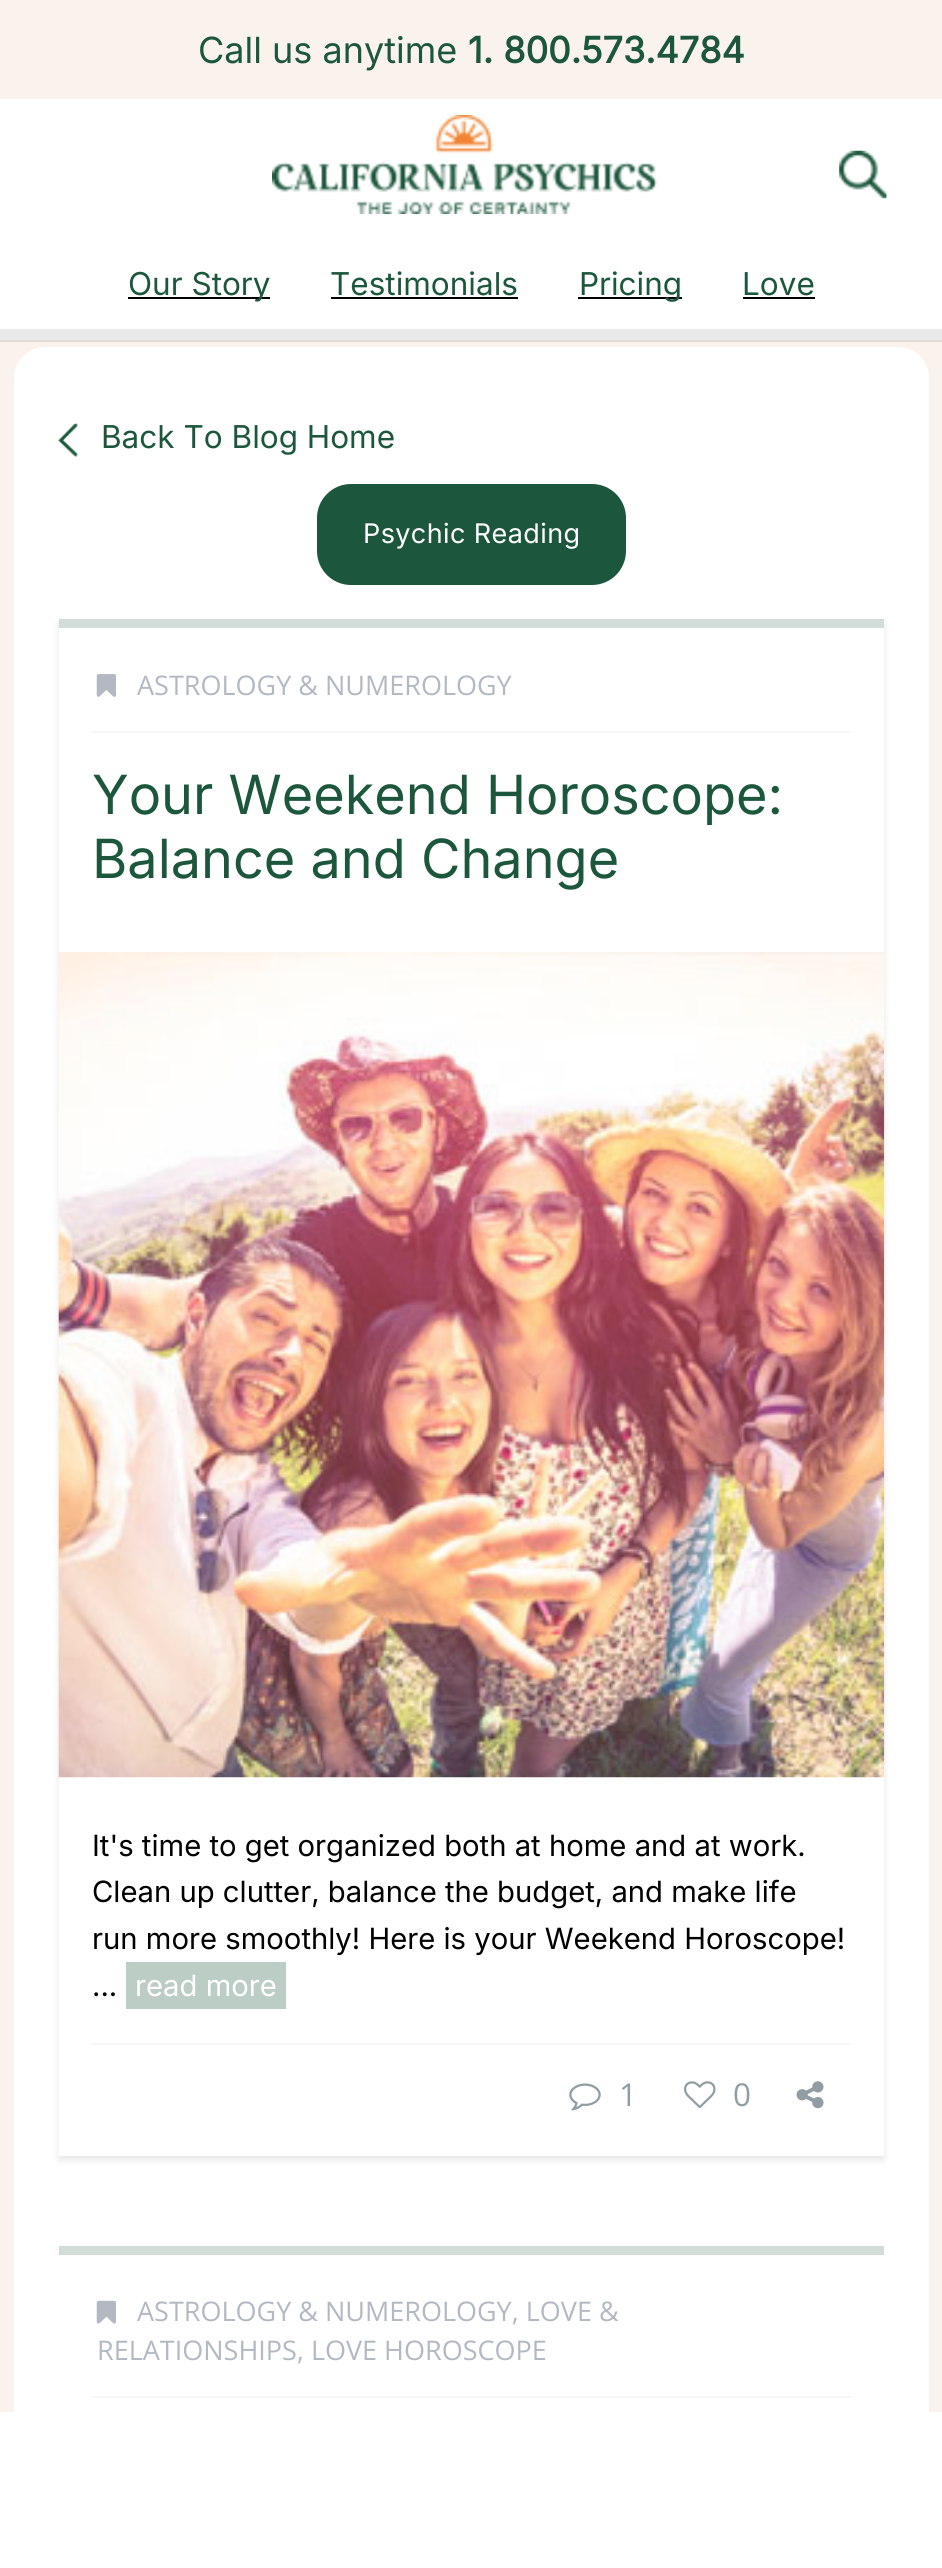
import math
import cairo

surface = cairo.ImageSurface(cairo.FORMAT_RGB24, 942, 2568)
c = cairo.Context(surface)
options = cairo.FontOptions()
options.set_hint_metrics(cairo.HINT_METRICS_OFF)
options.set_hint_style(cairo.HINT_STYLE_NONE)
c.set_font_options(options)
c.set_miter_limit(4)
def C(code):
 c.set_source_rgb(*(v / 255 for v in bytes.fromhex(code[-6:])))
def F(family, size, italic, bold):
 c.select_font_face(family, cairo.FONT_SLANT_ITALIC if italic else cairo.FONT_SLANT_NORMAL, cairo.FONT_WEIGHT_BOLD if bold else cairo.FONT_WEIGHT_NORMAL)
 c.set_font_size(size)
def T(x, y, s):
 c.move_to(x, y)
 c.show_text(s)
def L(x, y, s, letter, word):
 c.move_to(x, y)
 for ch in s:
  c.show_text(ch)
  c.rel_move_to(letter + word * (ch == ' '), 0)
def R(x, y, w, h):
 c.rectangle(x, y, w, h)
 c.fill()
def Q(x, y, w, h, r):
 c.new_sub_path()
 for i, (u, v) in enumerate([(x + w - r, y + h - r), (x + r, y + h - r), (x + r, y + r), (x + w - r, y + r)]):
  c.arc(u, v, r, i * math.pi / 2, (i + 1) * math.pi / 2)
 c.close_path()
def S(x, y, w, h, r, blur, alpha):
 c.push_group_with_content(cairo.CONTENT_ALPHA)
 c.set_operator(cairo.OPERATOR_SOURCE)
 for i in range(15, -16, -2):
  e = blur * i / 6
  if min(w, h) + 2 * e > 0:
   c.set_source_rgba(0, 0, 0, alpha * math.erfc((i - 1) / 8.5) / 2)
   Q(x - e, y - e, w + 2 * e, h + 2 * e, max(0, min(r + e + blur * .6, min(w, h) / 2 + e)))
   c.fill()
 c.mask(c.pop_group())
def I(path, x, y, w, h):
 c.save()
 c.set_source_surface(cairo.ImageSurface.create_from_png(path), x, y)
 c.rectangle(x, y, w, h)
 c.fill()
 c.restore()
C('faf2ed')
c.paint()
C('ffffff')
Q(7,340,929,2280,38)
c.fill_preserve()
C('faf2ed')
c.set_line_width(14)
c.stroke()
c.set_source_rgba(0,0,0,0.1)
c.new_path()
c.move_to(0,340)
c.line_to(0,342)
c.line_to(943,342)
c.line_to(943,2)
c.line_to(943,340)
c.close_path()
c.fill()
C('ffffff')
R(0,99,942,230)
C('e9e9e9')
R(0,329,942,11)
F('Inter',36,0,0)
C('1c573d')
T(198,63,'Call us anytime')
F('Inter',36,0,1)
T(468,63,'1. 800.573.4784')
I('1.png',272,115,385,99)
I('2.png',839,150,49,49)
C('000000')
R(128,297,142,2)
F('Inter',31.5,0,0)
C('1c573d')
T(128,295,'Our Story')
T(330,295,'Testimonials')
C('000000')
R(331,297,187,2)
R(578,297,104,2)
C('1c573d')
T(579,295,'Pricing')
T(742,295,'Love')
C('000000')
R(743,297,72,2)
I('3.png',58,423,20,34)
C('1c573d')
T(101,448,'Back To Blog Home')
Q(317,484,309,101,34)
c.fill()
F('Inter',27,0,0)
C('ffffff')
L(363,543,'Psychic Reading',.4,0)
C('000000')
S(59,623,825,1537,0,3.5,.1)
C('ffffff')
R(59,628,825,1528)
C('d2ddd8')
R(59,619,825,9)
C('f6f6f6')
R(92,731,759,2)
I('4.png',96,674,20,23)
F('Open Sans',27,0,0)
C('b3b9c3')
T(137,695,'ASTROLOGY & NUMEROLOGY')
F('Inter',54,0,0)
C('1c573d')
T(92,814,'Your Weekend Horoscope:')
T(92,878,'Balance and Change')
I('5.png',58,952,827,826)
F('Inter',29.25,0,0)
C('000000')
T(92,1856,'It\'s time to get organized both at home and at work.')
T(92,1902,'Clean up clutter, balance the budget, and make life')
T(92,1949,'run more smoothly! Here is your Weekend Horoscope!')
T(92,1996,'...')
C('bbcdc5')
R(126,1962,160,47)
C('ffffff')
T(135,1996,'read more')
C('f6f6f6')
R(92,2043,759,2)
I('6.png',569,2083,32,28)
F('Open Sans',31.5,0,0)
C('909ea3')
T(619,2106,'1')
I('7.png',684,2081,32,28)
T(733,2106,'0')
I('8.png',796,2081,28,28)
C('d2ddd8')
R(59,2246,825,9)
C('f6f6f6')
R(92,2396,759,2)
I('9.png',96,2300,20,24)
F('Open Sans',27,0,0)
C('b3b9c3')
T(137,2321,'ASTROLOGY & NUMEROLOGY, LOVE &')
T(97,2360,'RELATIONSHIPS, LOVE HOROSCOPE')
C('ffffff')
R(0,2412,942,156)
surface.write_to_png('o.png')
